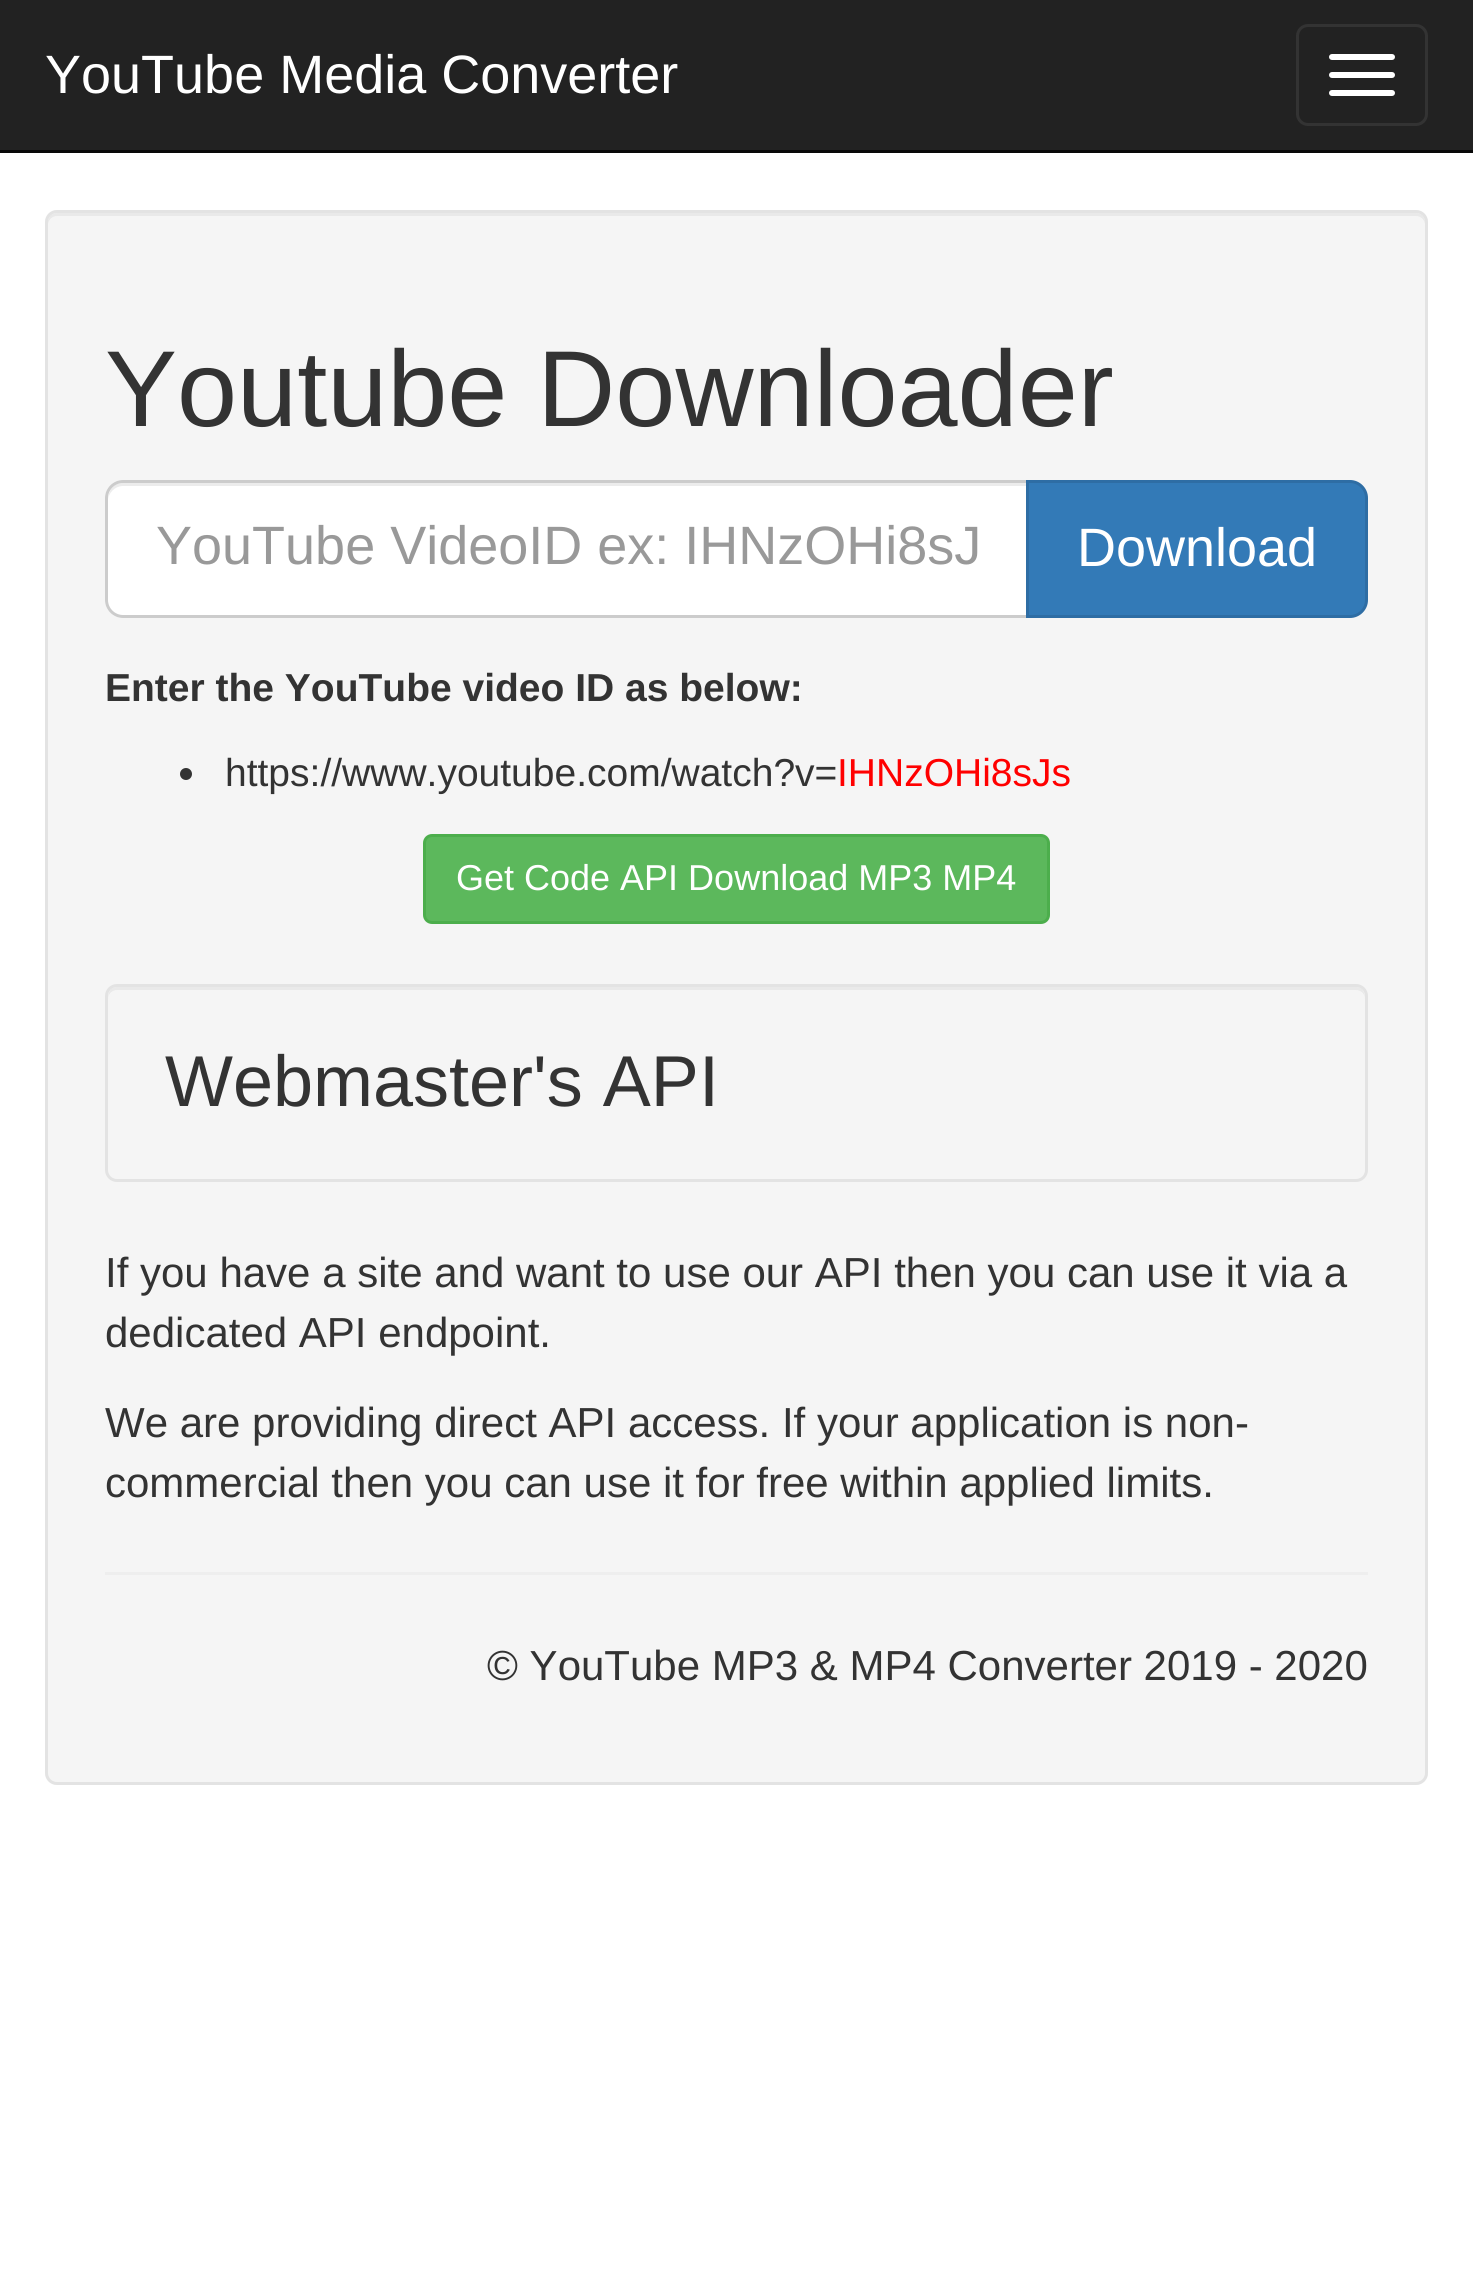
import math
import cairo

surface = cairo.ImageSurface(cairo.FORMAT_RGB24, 1473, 2270)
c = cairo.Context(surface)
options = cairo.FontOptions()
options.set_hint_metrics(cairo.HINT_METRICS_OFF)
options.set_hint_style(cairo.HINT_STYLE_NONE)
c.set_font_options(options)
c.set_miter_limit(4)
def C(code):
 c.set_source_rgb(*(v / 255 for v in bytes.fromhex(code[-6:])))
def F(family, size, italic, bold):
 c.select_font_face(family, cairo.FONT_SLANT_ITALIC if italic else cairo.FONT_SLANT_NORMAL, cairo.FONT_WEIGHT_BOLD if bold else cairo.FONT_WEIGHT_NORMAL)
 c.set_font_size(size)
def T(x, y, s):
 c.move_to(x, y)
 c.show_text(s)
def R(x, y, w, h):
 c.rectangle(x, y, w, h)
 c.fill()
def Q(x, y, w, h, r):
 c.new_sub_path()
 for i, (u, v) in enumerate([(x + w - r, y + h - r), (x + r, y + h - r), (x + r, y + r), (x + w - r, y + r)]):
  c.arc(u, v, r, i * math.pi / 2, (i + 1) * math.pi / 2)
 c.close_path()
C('ffffff')
c.paint()
C('222222')
R(0,0,1473,150)
C('080808')
R(0,150,1473,3)
F('Liberation Sans',54,0,0)
C('ffffff')
T(45,93,'YouTube Media Converter')
Q(1297.5,25.5,129,99,10.5)
C('333333')
c.set_line_width(3)
c.stroke()
C('ffffff')
Q(1329,54,66,6,3)
c.fill()
Q(1329,72,66,6,3)
c.fill()
Q(1329,90,66,6,3)
c.fill()
C('f5f5f5')
Q(45,210,1383,1575,12)
c.fill()
C('e9e9e9')
c.new_path()
c.move_to(57,216)
c.line_to(1416,216)
c.curve_to(1421,216,1425,220,1425,225)
c.line_to(1425,222)
c.curve_to(1425,217,1421,213,1416,213)
c.line_to(57,213)
c.curve_to(52,213,48,217,48,222)
c.line_to(48,225)
c.curve_to(48,220,52,216,57,216)
c.close_path()
c.fill()
Q(46.5,211.5,1380,1572,10.5)
C('e3e3e3')
c.stroke()
F('Liberation Sans',108,0,0)
C('333333')
T(105,426,'Youtube Downloader')
C('ffffff')
c.new_path()
c.move_to(123,480)
c.line_to(1029,480)
c.line_to(1029,618)
c.line_to(123,618)
c.curve_to(113,618,105,610,105,600)
c.line_to(105,498)
c.curve_to(105,488,113,480,123,480)
c.close_path()
c.fill()
C('ececec')
c.new_path()
c.move_to(123,486)
c.line_to(1026,486)
c.line_to(1026,483)
c.line_to(123,483)
c.curve_to(112,483,108,492,108,501)
c.curve_to(108,493,115,486,123,486)
c.close_path()
c.fill()
c.new_path()
c.move_to(123,481.5)
c.line_to(1027.5,481.5)
c.line_to(1027.5,616.5)
c.line_to(123,616.5)
c.curve_to(114,616.5,106.5,609,106.5,600)
c.line_to(106.5,498)
c.curve_to(106.5,489,114,481.5,123,481.5)
c.close_path()
C('cccccc')
c.stroke()
F('Liberation Sans',54,0,0)
C('999999')
T(156,564,'YouTube VideoID ex: IHNzOHi8sJ')
C('337ab7')
c.new_path()
c.move_to(1027.5,481.5)
c.line_to(1350,481.5)
c.curve_to(1359,481.5,1366.5,489,1366.5,498)
c.line_to(1366.5,600)
c.curve_to(1366.5,609,1359,616.5,1350,616.5)
c.line_to(1027.5,616.5)
c.close_path()
c.fill_preserve()
C('2e6da4')
c.stroke()
C('ffffff')
T(1077,566,'Download')
F('Liberation Sans',39,0,1)
C('333333')
T(105,701,'Enter the YouTube video ID as below:')
c.new_path()
c.arc(186,774,6,0,2 * math.pi)
c.fill()
F('Liberation Sans',39,0,0)
T(225,786,'https://www.youtube.com/watch?v=')
C('ff0000')
T(837,786,'IHNzOHi8sJs')
C('5cb85c')
Q(424.5,835.5,624,87,7.5)
c.fill_preserve()
C('4cae4c')
c.stroke()
F('Liberation Sans',36,0,0)
C('ffffff')
T(456,890,'Get Code API Download MP3 MP4')
C('e9e9e9')
c.new_path()
c.move_to(117,990)
c.line_to(1356,990)
c.curve_to(1361,990,1365,994,1365,999)
c.curve_to(1365,993,1363,987,1356,987)
c.line_to(117,987)
c.curve_to(110,987,108,993,108,999)
c.curve_to(108,994,112,990,117,990)
c.close_path()
c.fill()
Q(106.5,985.5,1260,195,10.5)
C('e3e3e3')
c.stroke()
F('Liberation Sans',72,0,0)
C('333333')
T(165,1106,'Webmaster\'s API')
F('Liberation Sans',42,0,0)
T(105,1287,'If you have a site and want to use our API then you can use it via a')
T(105,1347,'dedicated API endpoint.')
T(105,1437,'We are providing direct API access. If your application is non-')
T(105,1497,'commercial then you can use it for free within applied limits.')
C('eeeeee')
R(105,1572,1263,3)
C('333333')
T(487,1680,'© YouTube MP3 & MP4 Converter 2019 - 2020')
surface.write_to_png('o.png')
